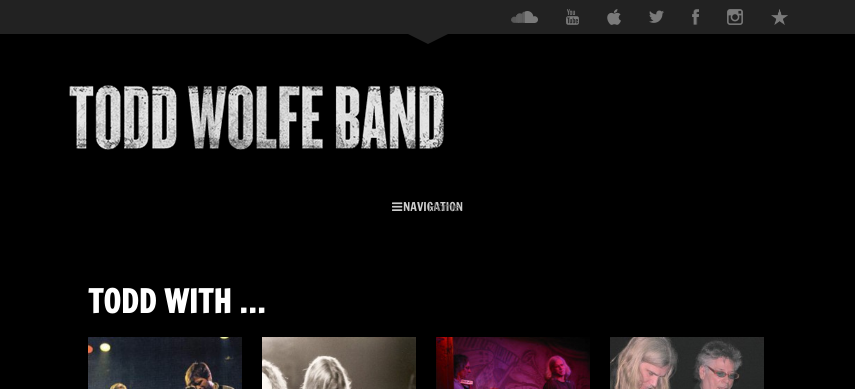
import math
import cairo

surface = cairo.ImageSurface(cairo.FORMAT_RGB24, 855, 389)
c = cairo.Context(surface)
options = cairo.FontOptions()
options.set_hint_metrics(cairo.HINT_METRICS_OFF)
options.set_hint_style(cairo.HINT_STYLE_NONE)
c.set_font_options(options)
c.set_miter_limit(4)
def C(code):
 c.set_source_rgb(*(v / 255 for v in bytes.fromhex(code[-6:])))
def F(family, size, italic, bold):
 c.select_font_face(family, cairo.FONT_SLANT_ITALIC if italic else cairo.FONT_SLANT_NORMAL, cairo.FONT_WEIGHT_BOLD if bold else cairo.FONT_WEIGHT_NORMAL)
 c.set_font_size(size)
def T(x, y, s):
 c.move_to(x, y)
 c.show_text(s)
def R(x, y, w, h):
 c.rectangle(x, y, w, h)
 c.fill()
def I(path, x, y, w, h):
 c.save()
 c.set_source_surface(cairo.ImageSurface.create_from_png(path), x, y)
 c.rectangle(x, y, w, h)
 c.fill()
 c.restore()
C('000000')
c.paint()
C('222222')
R(0,0,855,34)
I('1.png',511,11,27,12)
I('2.png',566,9,13,16)
I('3.png',607,9,14,16)
I('4.png',649,10,15,13)
I('5.png',692,9,7,16)
I('6.png',727,9,16,16)
I('7.png',771,9,17,16)
c.new_path()
c.move_to(408,34)
c.line_to(448,34)
c.line_to(428,44)
c.close_path()
c.fill()
I('8.png',69,85,375,65)
I('9.png',392,202,11,9)
F('Francois One',12,0,0)
C('cccccc')
T(403,211,'NAVIGATION')
F('Liberation Sans',12,0,0)
C('5d5d5d')
T(428,211,'Home')
F('Francois One',32,0,1)
C('ffffff')
T(88,313,'TODD WITH …')
I('10.png',88,337,154,52)
I('11.png',262,337,154,52)
I('12.png',436,337,154,52)
I('13.png',610,337,154,52)
surface.write_to_png('o.png')
